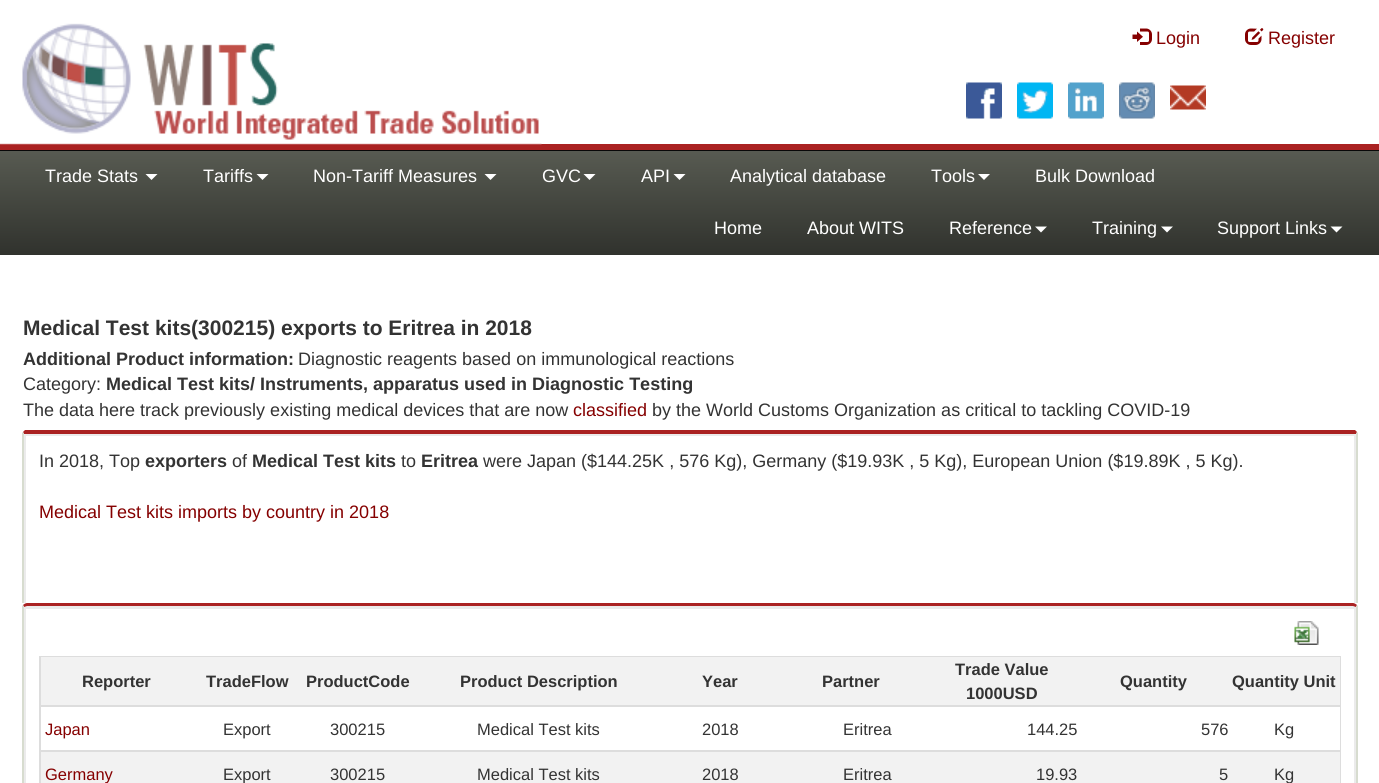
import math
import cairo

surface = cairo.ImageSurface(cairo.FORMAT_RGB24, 1379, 783)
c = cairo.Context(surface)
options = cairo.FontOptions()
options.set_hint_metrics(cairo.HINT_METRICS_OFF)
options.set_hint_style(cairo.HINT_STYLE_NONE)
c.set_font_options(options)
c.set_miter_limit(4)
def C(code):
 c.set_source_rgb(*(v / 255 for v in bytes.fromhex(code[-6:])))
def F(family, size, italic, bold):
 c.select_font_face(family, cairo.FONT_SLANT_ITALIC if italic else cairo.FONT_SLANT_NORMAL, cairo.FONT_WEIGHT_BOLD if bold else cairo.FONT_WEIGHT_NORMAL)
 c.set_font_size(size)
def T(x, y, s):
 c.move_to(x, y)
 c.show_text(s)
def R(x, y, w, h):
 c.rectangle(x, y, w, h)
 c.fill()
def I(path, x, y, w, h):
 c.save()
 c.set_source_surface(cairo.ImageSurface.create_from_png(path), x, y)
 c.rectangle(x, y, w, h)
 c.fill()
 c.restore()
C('ffffff')
c.paint()
C('080808')
R(0,150,1379,1)
C('aa2222')
R(0,144,1379,6)
I('1.png',0,23,542,122)
I('2.png',1132,28,20,17)
F('Liberation Sans',18,0,0)
C('850000')
T(1156,44,'Login')
I('3.png',1245,28,19,17)
T(1268,44,'Register')
I('4.png',966,82,36,37)
I('5.png',1017,82,36,37)
I('6.png',1068,82,36,37)
I('7.png',1119,82,36,37)
I('8.png',1170,85,36,25)
gradient = cairo.LinearGradient(690,150,690,255)
gradient.add_color_stop_rgba(0,0.345,0.357,0.322,1)
gradient.add_color_stop_rgba(1,0.188,0.196,0.176,1)
c.set_source(gradient)
R(0,151,1379,104)
C('ffffff')
T(45,182,'Trade Stats')
c.new_path()
c.move_to(145.5,174)
c.line_to(157.5,174)
c.line_to(151.5,180)
c.close_path()
c.fill()
T(203,182,'Tariffs')
c.new_path()
c.move_to(256.5,174)
c.line_to(268.5,174)
c.line_to(262.5,180)
c.close_path()
c.fill()
T(313,182,'Non-Tariff Measures')
c.new_path()
c.move_to(484.5,174)
c.line_to(496.5,174)
c.line_to(490.5,180)
c.close_path()
c.fill()
T(542,182,'GVC')
c.new_path()
c.move_to(583.5,174)
c.line_to(595.5,174)
c.line_to(589.5,180)
c.close_path()
c.fill()
T(641,182,'API')
c.new_path()
c.move_to(673.5,174)
c.line_to(685.5,174)
c.line_to(679.5,180)
c.close_path()
c.fill()
T(730,182,'Analytical database')
T(931,182,'Tools')
c.new_path()
c.move_to(978,174)
c.line_to(990,174)
c.line_to(984,180)
c.close_path()
c.fill()
T(1035,182,'Bulk Download')
T(714,234,'Home')
T(807,234,'About WITS')
T(949,234,'Reference')
c.new_path()
c.move_to(1035,226.5)
c.line_to(1047,226.5)
c.line_to(1041,232.5)
c.close_path()
c.fill()
T(1092,234,'Training')
c.new_path()
c.move_to(1161,226.5)
c.line_to(1173,226.5)
c.line_to(1167,232.5)
c.close_path()
c.fill()
T(1217,234,'Support Links')
c.new_path()
c.move_to(1330.5,226.5)
c.line_to(1342.5,226.5)
c.line_to(1336.5,232.5)
c.close_path()
c.fill()
F('Liberation Sans',21,0,1)
C('333333')
T(23,335,'Medical Test kits(300215) exports to Eritrea in 2018')
F('Liberation Sans',18,0,1)
T(23,365,'Additional Product information:')
F('Liberation Sans',18,0,0)
T(298,365,'Diagnostic reagents based on immunological reactions')
T(23,390,'Category:')
F('Liberation Sans',18,0,1)
T(106,390,'Medical Test kits/ Instruments, apparatus used in Diagnostic Testing')
F('Liberation Sans',18,0,0)
T(23,416,'The data here track previously existing medical devices that are now')
C('850000')
T(573,416,'classified')
C('333333')
T(652,416,'by the World Customs Organization as critical to tackling COVID-19')
C('ebebeb')
c.new_path()
c.move_to(27,434)
c.curve_to(25,434,24,434,24,435)
c.line_to(24,651)
c.curve_to(24,653,25,654,27,654)
c.curve_to(26,654,26,653,26,652)
c.line_to(26,436)
c.line_to(1354,436)
c.line_to(1354,652)
c.curve_to(1354,653,1354,654,1353,654)
c.curve_to(1355,654,1356,653,1356,651)
c.line_to(1356,435)
c.curve_to(1356,434,1355,434,1353,434)
c.close_path()
c.fill()
C('aa2222')
c.new_path()
c.move_to(27,434)
c.line_to(24,434)
c.line_to(23,432)
c.line_to(25,430)
c.line_to(1355,430)
c.line_to(1357,432)
c.line_to(1356,434)
c.line_to(1353,434)
c.close_path()
c.fill()
C('d7dccf')
c.new_path()
c.move_to(1358,653)
c.line_to(1356,654)
c.line_to(1355,653)
c.line_to(1356,651)
c.line_to(1356,435)
c.line_to(1356,434)
c.line_to(1357,432)
c.line_to(1358,433)
c.close_path()
c.fill()
c.new_path()
c.move_to(22,433)
c.line_to(23,432)
c.line_to(24,434)
c.line_to(24,435)
c.line_to(24,651)
c.line_to(25,653)
c.line_to(24,654)
c.line_to(22,653)
c.close_path()
c.fill()
C('333333')
T(39,467,'In 2018, Top')
F('Liberation Sans',18,0,1)
T(145,467,'exporters')
F('Liberation Sans',18,0,0)
T(232,467,'of')
F('Liberation Sans',18,0,1)
T(252,467,'Medical Test kits')
F('Liberation Sans',18,0,0)
T(401,467,'to')
F('Liberation Sans',18,0,1)
T(421,467,'Eritrea')
F('Liberation Sans',18,0,0)
T(483,467,'were Japan ($144.25K , 576 Kg), Germany ($19.93K , 5 Kg), European Union ($19.89K , 5 Kg).')
C('850000')
T(39,518,'Medical Test kits imports by country in 2018')
C('ffffff')
R(22,603,1336,51)
C('ebebeb')
c.new_path()
c.move_to(27,606)
c.curve_to(25,606,24,607,24,608)
c.line_to(24,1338)
c.curve_to(24,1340,25,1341,27,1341)
c.line_to(26,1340)
c.line_to(26,609)
c.line_to(1354,609)
c.line_to(1354,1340)
c.line_to(1353,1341)
c.curve_to(1355,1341,1356,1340,1356,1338)
c.line_to(1356,608)
c.curve_to(1356,607,1355,606,1353,606)
c.close_path()
c.fill()
C('aa2222')
c.new_path()
c.move_to(27,603)
c.curve_to(26,603,24,604,23,605)
c.line_to(24,607)
c.line_to(27,606)
c.line_to(1353,606)
c.line_to(1356,607)
c.line_to(1357,605)
c.curve_to(1356,604,1354,603,1353,603)
c.close_path()
c.fill()
C('d7dccf')
c.new_path()
c.move_to(1358,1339)
c.line_to(1356,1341)
c.line_to(1355,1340)
c.line_to(1356,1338)
c.line_to(1356,608)
c.line_to(1356,607)
c.line_to(1357,605)
c.line_to(1358,606)
c.close_path()
c.fill()
c.new_path()
c.move_to(22,606)
c.line_to(23,605)
c.line_to(24,607)
c.line_to(24,608)
c.line_to(24,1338)
c.line_to(25,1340)
c.line_to(24,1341)
c.line_to(22,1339)
c.close_path()
c.fill()
I('9.png',1294,621,25,24)
c.rectangle(40,657,1300,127)
C('dddddd')
c.stroke()
C('f2f2f2')
R(41,657,1299,48)
C('dddddd')
R(41,705,1299,2)
F('Liberation Sans',16.5,0,1)
C('333333')
T(82,687,'Reporter')
T(206,687,'TradeFlow')
T(306,687,'ProductCode')
T(460,687,'Product Description')
T(702,687,'Year')
T(822,687,'Partner')
T(955,675,'Trade Value')
T(966,699,'1000USD')
T(1120,687,'Quantity')
T(1232,687,'Quantity Unit')
C('ffffff')
R(1339,707,1,43)
C('dddddd')
R(41,750,1299,2)
F('Liberation Sans',16.5,0,0)
C('850000')
T(45,735,'Japan')
C('333333')
T(223,735,'Export')
T(330,735,'300215')
T(477,735,'Medical Test kits')
T(702,735,'2018')
T(843,735,'Eritrea')
T(1027,735,'144.25')
T(1201,735,'576')
T(1274,735,'Kg')
C('f2f2f2')
R(41,752,1299,31)
C('850000')
T(45,780,'Germany')
C('333333')
T(223,780,'Export')
T(330,780,'300215')
T(477,780,'Medical Test kits')
T(702,780,'2018')
T(843,780,'Eritrea')
T(1036,780,'19.93')
T(1219,780,'5')
T(1274,780,'Kg')
surface.write_to_png('o.png')
